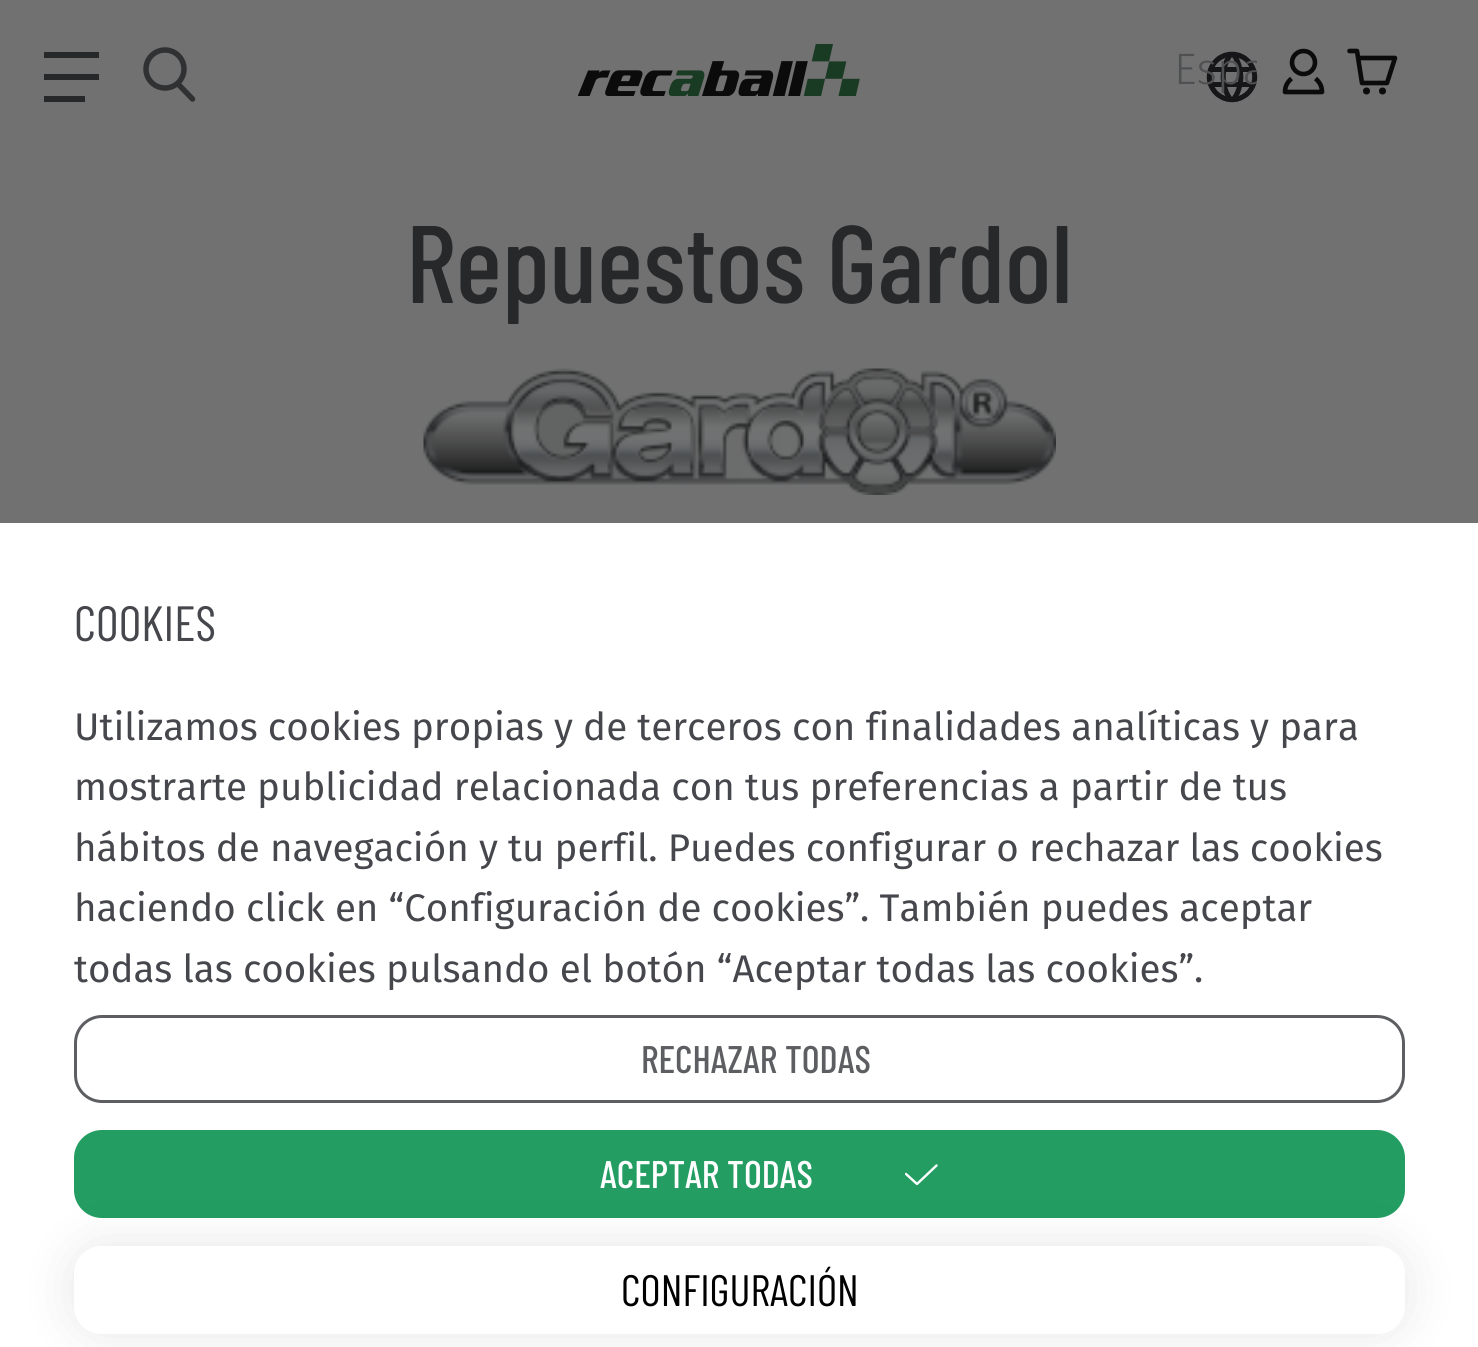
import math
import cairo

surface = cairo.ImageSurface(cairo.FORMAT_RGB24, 1478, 1347)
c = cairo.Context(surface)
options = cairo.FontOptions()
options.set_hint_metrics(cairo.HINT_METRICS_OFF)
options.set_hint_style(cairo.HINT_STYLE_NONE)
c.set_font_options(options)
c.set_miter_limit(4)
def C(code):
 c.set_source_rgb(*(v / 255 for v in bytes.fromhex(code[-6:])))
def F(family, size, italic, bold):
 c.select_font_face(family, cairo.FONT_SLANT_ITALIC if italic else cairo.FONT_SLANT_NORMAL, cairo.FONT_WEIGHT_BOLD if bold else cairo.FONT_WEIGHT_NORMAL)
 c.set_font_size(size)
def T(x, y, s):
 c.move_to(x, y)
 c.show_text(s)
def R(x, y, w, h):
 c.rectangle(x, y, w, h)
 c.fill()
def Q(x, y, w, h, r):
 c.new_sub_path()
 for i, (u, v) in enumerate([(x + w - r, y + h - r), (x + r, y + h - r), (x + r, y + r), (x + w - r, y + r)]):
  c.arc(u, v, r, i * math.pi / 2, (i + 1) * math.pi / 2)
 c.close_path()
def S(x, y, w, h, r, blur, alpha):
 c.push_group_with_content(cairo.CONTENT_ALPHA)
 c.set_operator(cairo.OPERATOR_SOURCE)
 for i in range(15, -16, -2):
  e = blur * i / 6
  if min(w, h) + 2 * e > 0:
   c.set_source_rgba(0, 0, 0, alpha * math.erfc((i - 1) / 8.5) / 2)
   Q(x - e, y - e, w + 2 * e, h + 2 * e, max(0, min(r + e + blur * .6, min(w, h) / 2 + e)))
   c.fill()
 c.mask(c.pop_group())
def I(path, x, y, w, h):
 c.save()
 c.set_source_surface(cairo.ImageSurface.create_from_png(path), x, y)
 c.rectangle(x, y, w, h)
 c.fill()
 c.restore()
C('717172')
c.paint()
C('27282a')
R(44,52,55,6)
c.arc(165,69,19,0,2 * math.pi)
C('303133')
c.set_line_width(5.5)
c.stroke()
c.new_path()
c.move_to(192.5,99)
c.line_to(179,85)
c.set_line_cap(cairo.LINE_CAP_ROUND)
c.stroke()
C('27282a')
R(44,74,55,6)
R(44,96,41,6)
I('1.png',578,44,282,52)
I('2.png',1206,51,52,52)
c.save()
c.rectangle(1174,6,83,132)
c.clip()
F('Fira Sans Light',44,0,0)
C('4f5051')
T(1174,84,'Espa')
c.restore()
c.new_path()
c.arc(1303.5,62.5,11.5,0,2 * math.pi)
C('0b0b0c')
c.set_line_width(4.6)
c.set_line_cap(cairo.LINE_CAP_BUTT)
c.stroke()
c.new_path()
c.move_to(1291.5,78.5)
c.curve_to(1287.5,82,1285,86,1285,92)
c.line_to(1322,92)
c.curve_to(1322,86,1319.5,82,1315.5,78.5)
c.set_line_join(cairo.LINE_JOIN_ROUND)
c.stroke()
c.new_path()
c.move_to(1349.5,51)
c.line_to(1357,51)
c.line_to(1362,83)
c.line_to(1387,83)
c.line_to(1395,58)
c.line_to(1359,58)
c.set_line_cap(cairo.LINE_CAP_ROUND)
c.stroke()
c.arc(1366.5,91,3.5,0,2 * math.pi)
c.fill()
c.arc(1382.5,91,3.5,0,2 * math.pi)
c.fill()
F('Barlow Condensed Medium',110,0,0)
C('27282a')
T(406,303,'Repuestos Gardol')
I('3.png',423,368,633,127)
C('ffffff')
R(0,523,1478,824)
F('Barlow Condensed',49.5,0,0)
C('46474c')
T(74,641,'COOKIES')
F('Fira Sans',38.5,0,0)
T(74,740,'Utilizamos cookies propias y de terceros con finalidades analíticas y para')
T(74,800,'mostrarte publicidad relacionada con tus preferencias a partir de tus')
T(74,861,'hábitos de navegación y tu perfil. Puedes configurar o rechazar las cookies')
T(74,921,'haciendo click en “Configuración de cookies”. También puedes aceptar')
T(74,982,'todas las cookies pulsando el botón “Aceptar todas las cookies”.')
Q(75.5,1016.5,1328,85,26.5)
C('5d5e62')
c.set_line_width(3)
c.set_line_cap(cairo.LINE_CAP_BUTT)
c.set_line_join(cairo.LINE_JOIN_MITER)
c.stroke()
F('Barlow Condensed Medium',38.5,0,0)
T(641,1073,'RECHAZAR TODAS')
C('239d62')
Q(74,1130,1331,88,28)
c.fill()
C('ffffff')
T(600,1188,'ACEPTAR TODAS')
c.save()
c.rectangle(905,1163,33,22)
c.clip()
c.new_path()
c.move_to(906,1174)
c.line_to(917,1184)
c.line_to(936.5,1165.5)
c.set_line_width(2.4)
c.set_line_cap(cairo.LINE_CAP_ROUND)
c.set_line_join(cairo.LINE_JOIN_ROUND)
c.stroke()
c.restore()
c.save()
c.set_fill_rule(cairo.FILL_RULE_EVEN_ODD)
c.new_path()
c.move_to(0,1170)
c.line_to(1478,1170)
c.line_to(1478,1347)
c.line_to(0,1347)
c.close_path()
c.move_to(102,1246)
c.line_to(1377,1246)
c.curve_to(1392.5,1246,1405,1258.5,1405,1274)
c.line_to(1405,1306)
c.curve_to(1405,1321.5,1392.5,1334,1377,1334)
c.line_to(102,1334)
c.curve_to(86.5,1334,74,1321.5,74,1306)
c.line_to(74,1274)
c.curve_to(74,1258.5,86.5,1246,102,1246)
c.close_path()
c.clip()
C('000000')
S(74,1246,1331,88,28,25,.1)
c.restore()
F('Barlow Condensed',44,0,0)
C('000000')
T(621,1306,'CONFIGURACIÓN')
surface.write_to_png('o.png')
